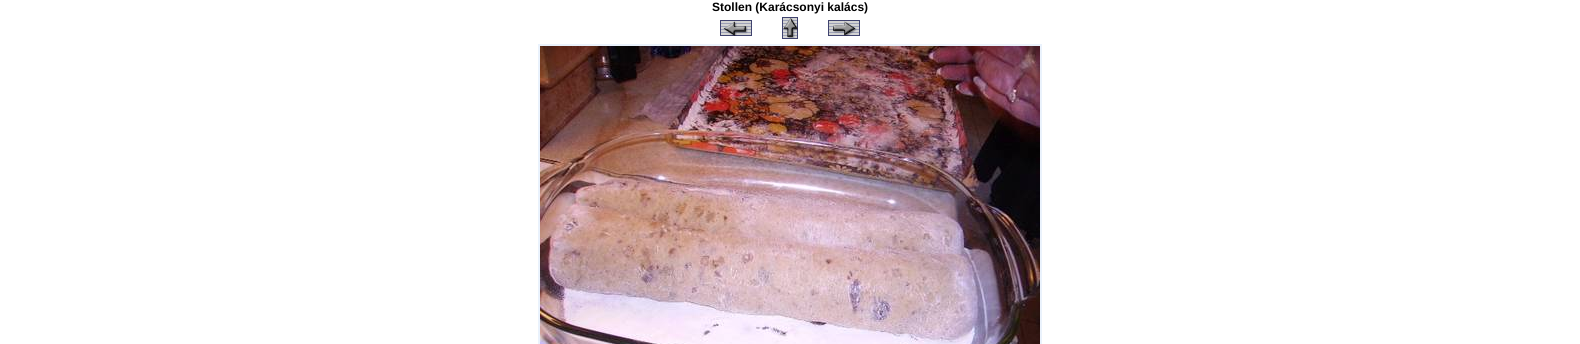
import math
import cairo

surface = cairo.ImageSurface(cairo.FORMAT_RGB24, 1580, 344)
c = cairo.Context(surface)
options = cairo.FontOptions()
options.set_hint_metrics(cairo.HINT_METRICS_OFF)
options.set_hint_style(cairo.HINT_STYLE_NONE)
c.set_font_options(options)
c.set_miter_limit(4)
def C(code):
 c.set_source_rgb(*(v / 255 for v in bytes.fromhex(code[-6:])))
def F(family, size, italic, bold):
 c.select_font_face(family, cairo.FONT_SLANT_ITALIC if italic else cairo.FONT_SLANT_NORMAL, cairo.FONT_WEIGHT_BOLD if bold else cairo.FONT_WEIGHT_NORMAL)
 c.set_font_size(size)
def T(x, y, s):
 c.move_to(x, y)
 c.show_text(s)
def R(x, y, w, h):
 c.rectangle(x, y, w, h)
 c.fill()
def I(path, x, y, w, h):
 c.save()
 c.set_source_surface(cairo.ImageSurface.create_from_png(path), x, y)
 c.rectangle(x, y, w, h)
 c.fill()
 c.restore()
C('ffffff')
c.paint()
F('Liberation Sans',12,0,1)
C('000000')
T(712,11,'Stollen (Karácsonyi kalács)')
I('1.png',720,20,32,16)
I('2.png',782,17,16,22)
I('3.png',828,20,32,16)
C('eaf2fc')
R(538,44,504,300)
I('4.png',540,46,500,298)
surface.write_to_png('o.png')
